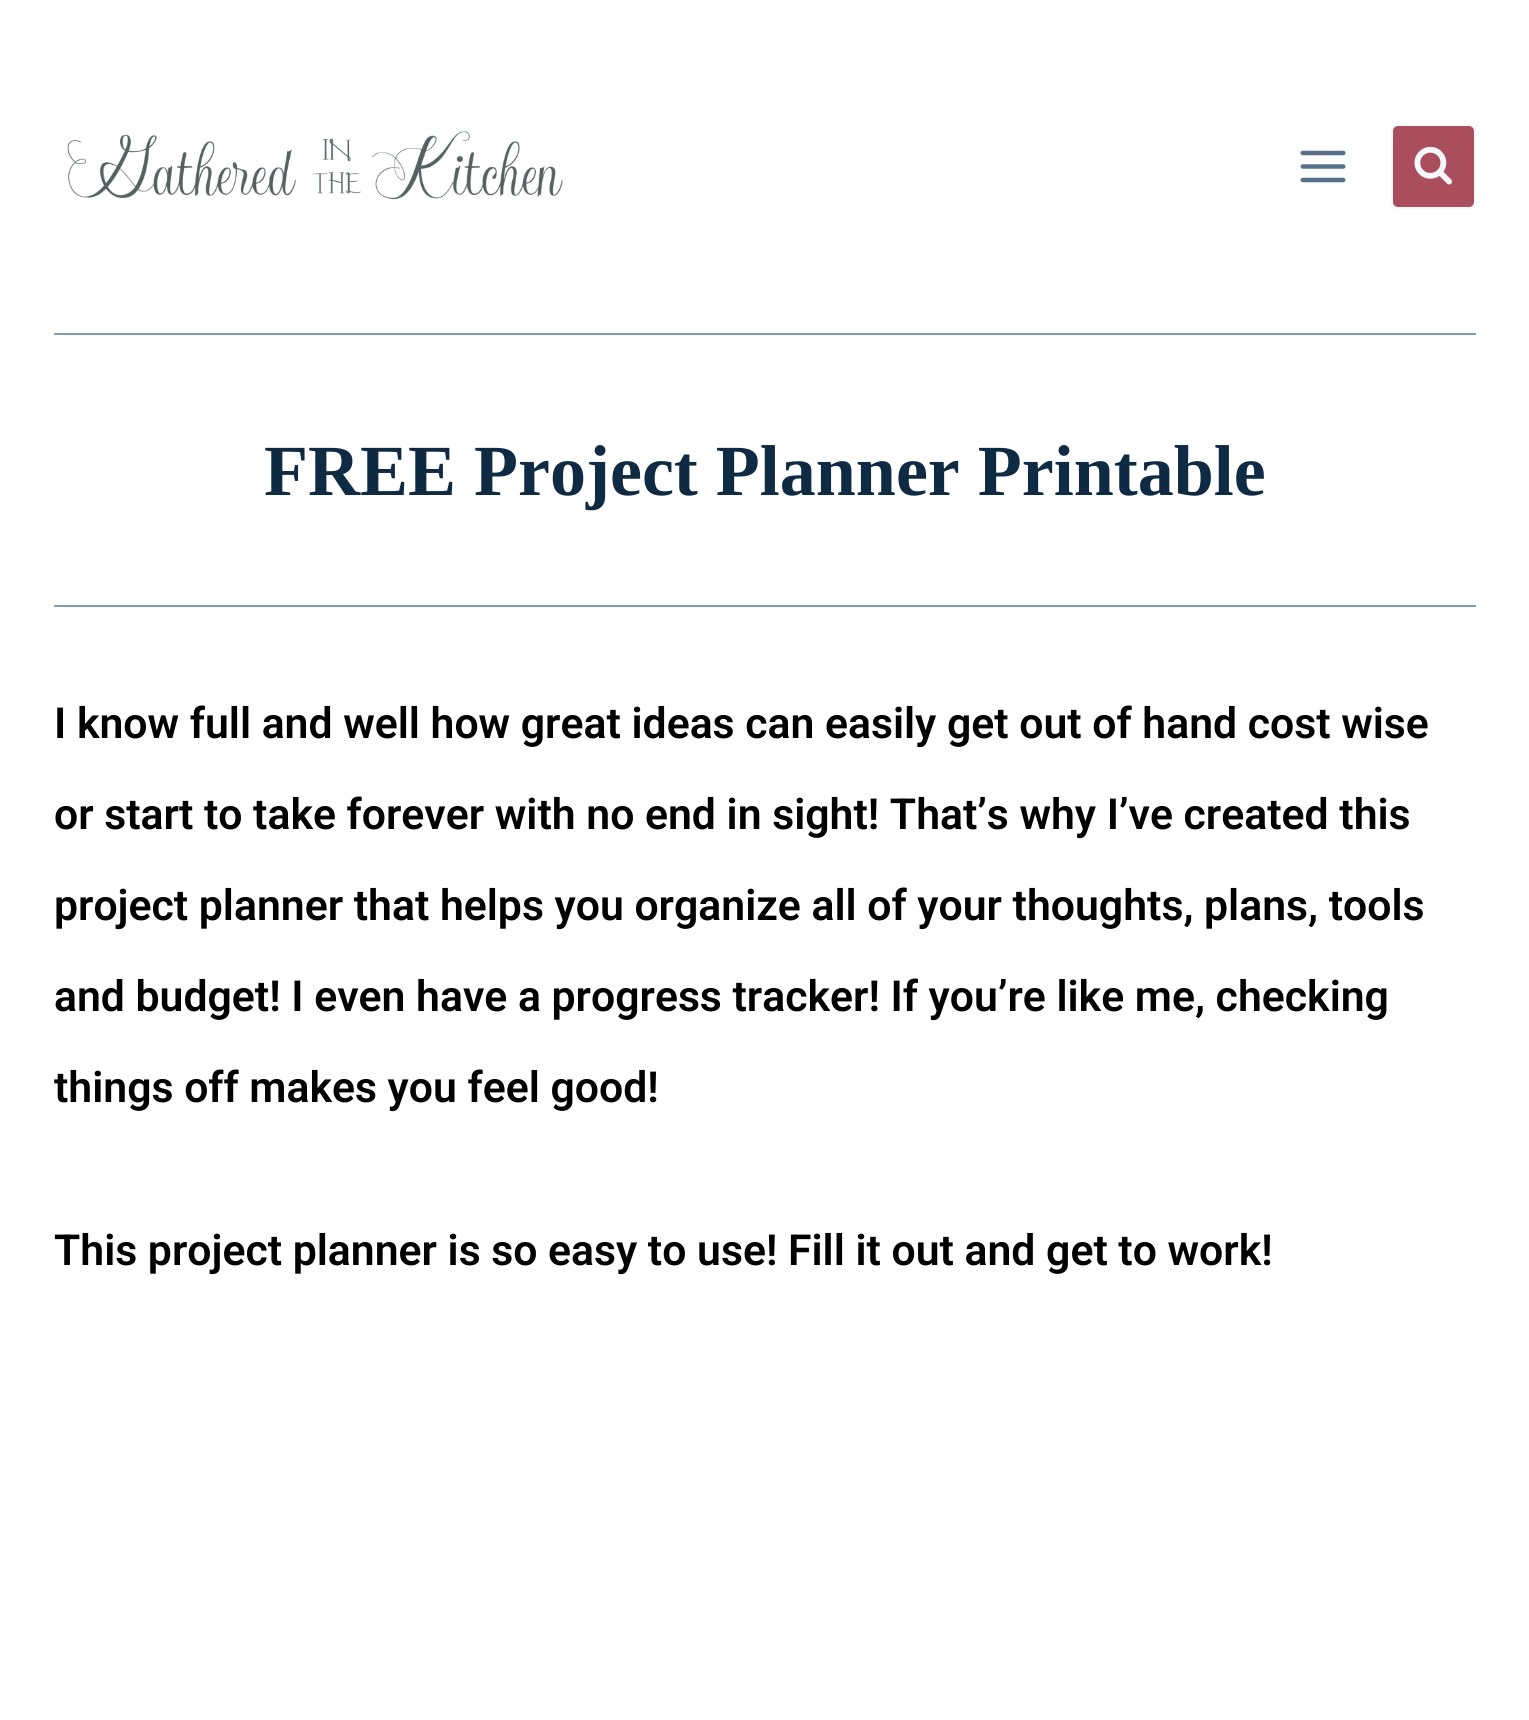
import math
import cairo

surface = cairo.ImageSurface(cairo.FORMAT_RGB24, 1529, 1720)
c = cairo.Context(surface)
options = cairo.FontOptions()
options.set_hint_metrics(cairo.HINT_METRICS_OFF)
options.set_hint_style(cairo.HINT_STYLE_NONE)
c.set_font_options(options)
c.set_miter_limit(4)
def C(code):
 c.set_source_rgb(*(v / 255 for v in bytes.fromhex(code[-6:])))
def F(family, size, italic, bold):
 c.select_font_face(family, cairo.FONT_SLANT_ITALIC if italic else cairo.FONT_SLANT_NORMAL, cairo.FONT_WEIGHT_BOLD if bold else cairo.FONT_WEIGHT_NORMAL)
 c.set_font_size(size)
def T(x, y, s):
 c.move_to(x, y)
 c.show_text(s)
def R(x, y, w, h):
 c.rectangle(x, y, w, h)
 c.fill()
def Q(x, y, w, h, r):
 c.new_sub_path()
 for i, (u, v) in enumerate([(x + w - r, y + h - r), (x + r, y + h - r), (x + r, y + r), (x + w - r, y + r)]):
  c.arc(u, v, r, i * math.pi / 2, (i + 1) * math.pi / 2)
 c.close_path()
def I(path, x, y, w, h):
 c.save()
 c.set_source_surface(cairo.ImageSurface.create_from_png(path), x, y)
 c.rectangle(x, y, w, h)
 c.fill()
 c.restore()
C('ffffff')
c.paint()
I('1.png',67,131,496,69)
I('2.png',1300,150,46,33)
C('aa4d5d')
Q(1392,125,83,83,6)
c.fill_preserve()
C('f5f7fa')
c.stroke()
I('3.png',1414,146,38,39)
C('829ab1')
R(54,333,1422,2)
R(54,605,1422,2)
F('Liberation Serif',72,0,1)
C('0f2a43')
T(264,495,'FREE Project Planner Printable')
F('Roboto SemiBold',42.75,0,0)
C('000000')
T(54,738,'I know full and well how great ideas can easily get out of hand cost wise')
T(54,829,'or start to take forever with no end in sight! That’s why I’ve created this')
T(54,920,'project planner that helps you organize all of your thoughts, plans, tools')
T(54,1011,'and budget! I even have a progress tracker! If you’re like me, checking')
T(54,1102,'things off makes you feel good!')
T(54,1265,'This project planner is so easy to use! Fill it out and get to work!')
surface.write_to_png('o.png')
